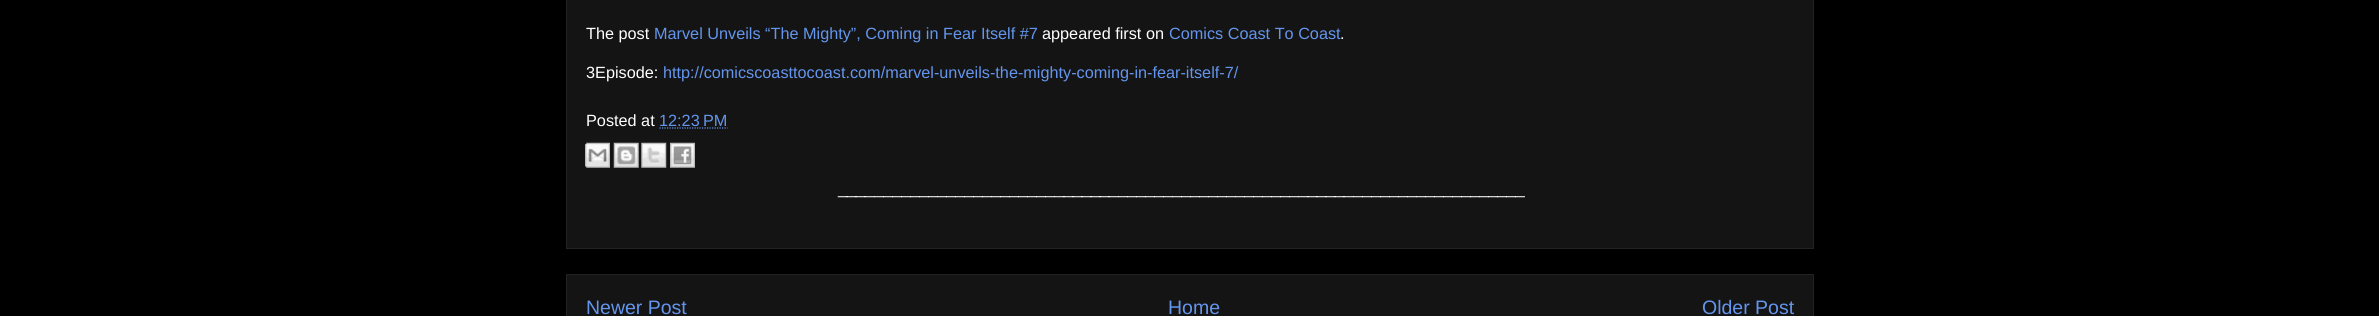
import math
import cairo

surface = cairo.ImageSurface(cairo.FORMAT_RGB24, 2379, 316)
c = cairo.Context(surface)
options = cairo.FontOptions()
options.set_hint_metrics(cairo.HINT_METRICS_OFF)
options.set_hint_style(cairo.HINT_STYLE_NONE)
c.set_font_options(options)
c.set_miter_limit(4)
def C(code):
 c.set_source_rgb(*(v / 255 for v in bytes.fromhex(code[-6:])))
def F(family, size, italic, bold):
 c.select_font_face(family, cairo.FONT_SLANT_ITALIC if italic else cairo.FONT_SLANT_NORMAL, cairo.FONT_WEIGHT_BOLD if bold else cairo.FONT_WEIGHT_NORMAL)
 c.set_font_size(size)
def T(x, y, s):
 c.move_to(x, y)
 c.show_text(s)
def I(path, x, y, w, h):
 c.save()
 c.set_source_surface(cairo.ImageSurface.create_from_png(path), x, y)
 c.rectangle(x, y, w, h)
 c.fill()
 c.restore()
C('000000')
c.paint()
C('141414')
c.rectangle(566.5,-.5,1247,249)
c.fill_preserve()
C('222222')
c.set_line_width(1)
c.stroke()
F('Liberation Sans',16.25,0,0)
C('ffffff')
T(586,39,'The post')
C('6495ed')
T(654,39,'Marvel Unveils “The Mighty”, Coming in Fear Itself #7')
C('ffffff')
T(1042,39,'appeared first on')
C('6495ed')
T(1169,39,'Comics Coast To Coast')
C('ffffff')
T(1340,39,'.')
T(586,78,'3Episode:')
C('6495ed')
T(663,78,'http://comicscoasttocoast.com/marvel-unveils-the-mighty-coming-in-fear-itself-7/')
C('ffffff')
T(586,126,'Posted at')
C('6495ed')
T(659,126,'12:23 PM')
c.new_path()
c.move_to(659.5,128)
c.line_to(727.5,128)
c.set_line_width(1.2)
c.set_dash([1.25,1.25])
c.stroke()
I('1.png',585,142,25,26)
I('2.png',613,142,26,26)
I('3.png',641,142,26,26)
I('4.png',670,142,25,26)
C('ffffff')
T(838,194,'____________________________________________________________________________')
C('141414')
c.rectangle(566.5,274.5,1247,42)
c.fill_preserve()
C('222222')
c.set_line_width(1)
c.set_dash([])
c.stroke()
F('Liberation Sans',19.5,0,0)
C('6495ed')
T(586,314,'Newer Post')
T(1168,314,'Home')
T(1702,314,'Older Post')
surface.write_to_png('o.png')
